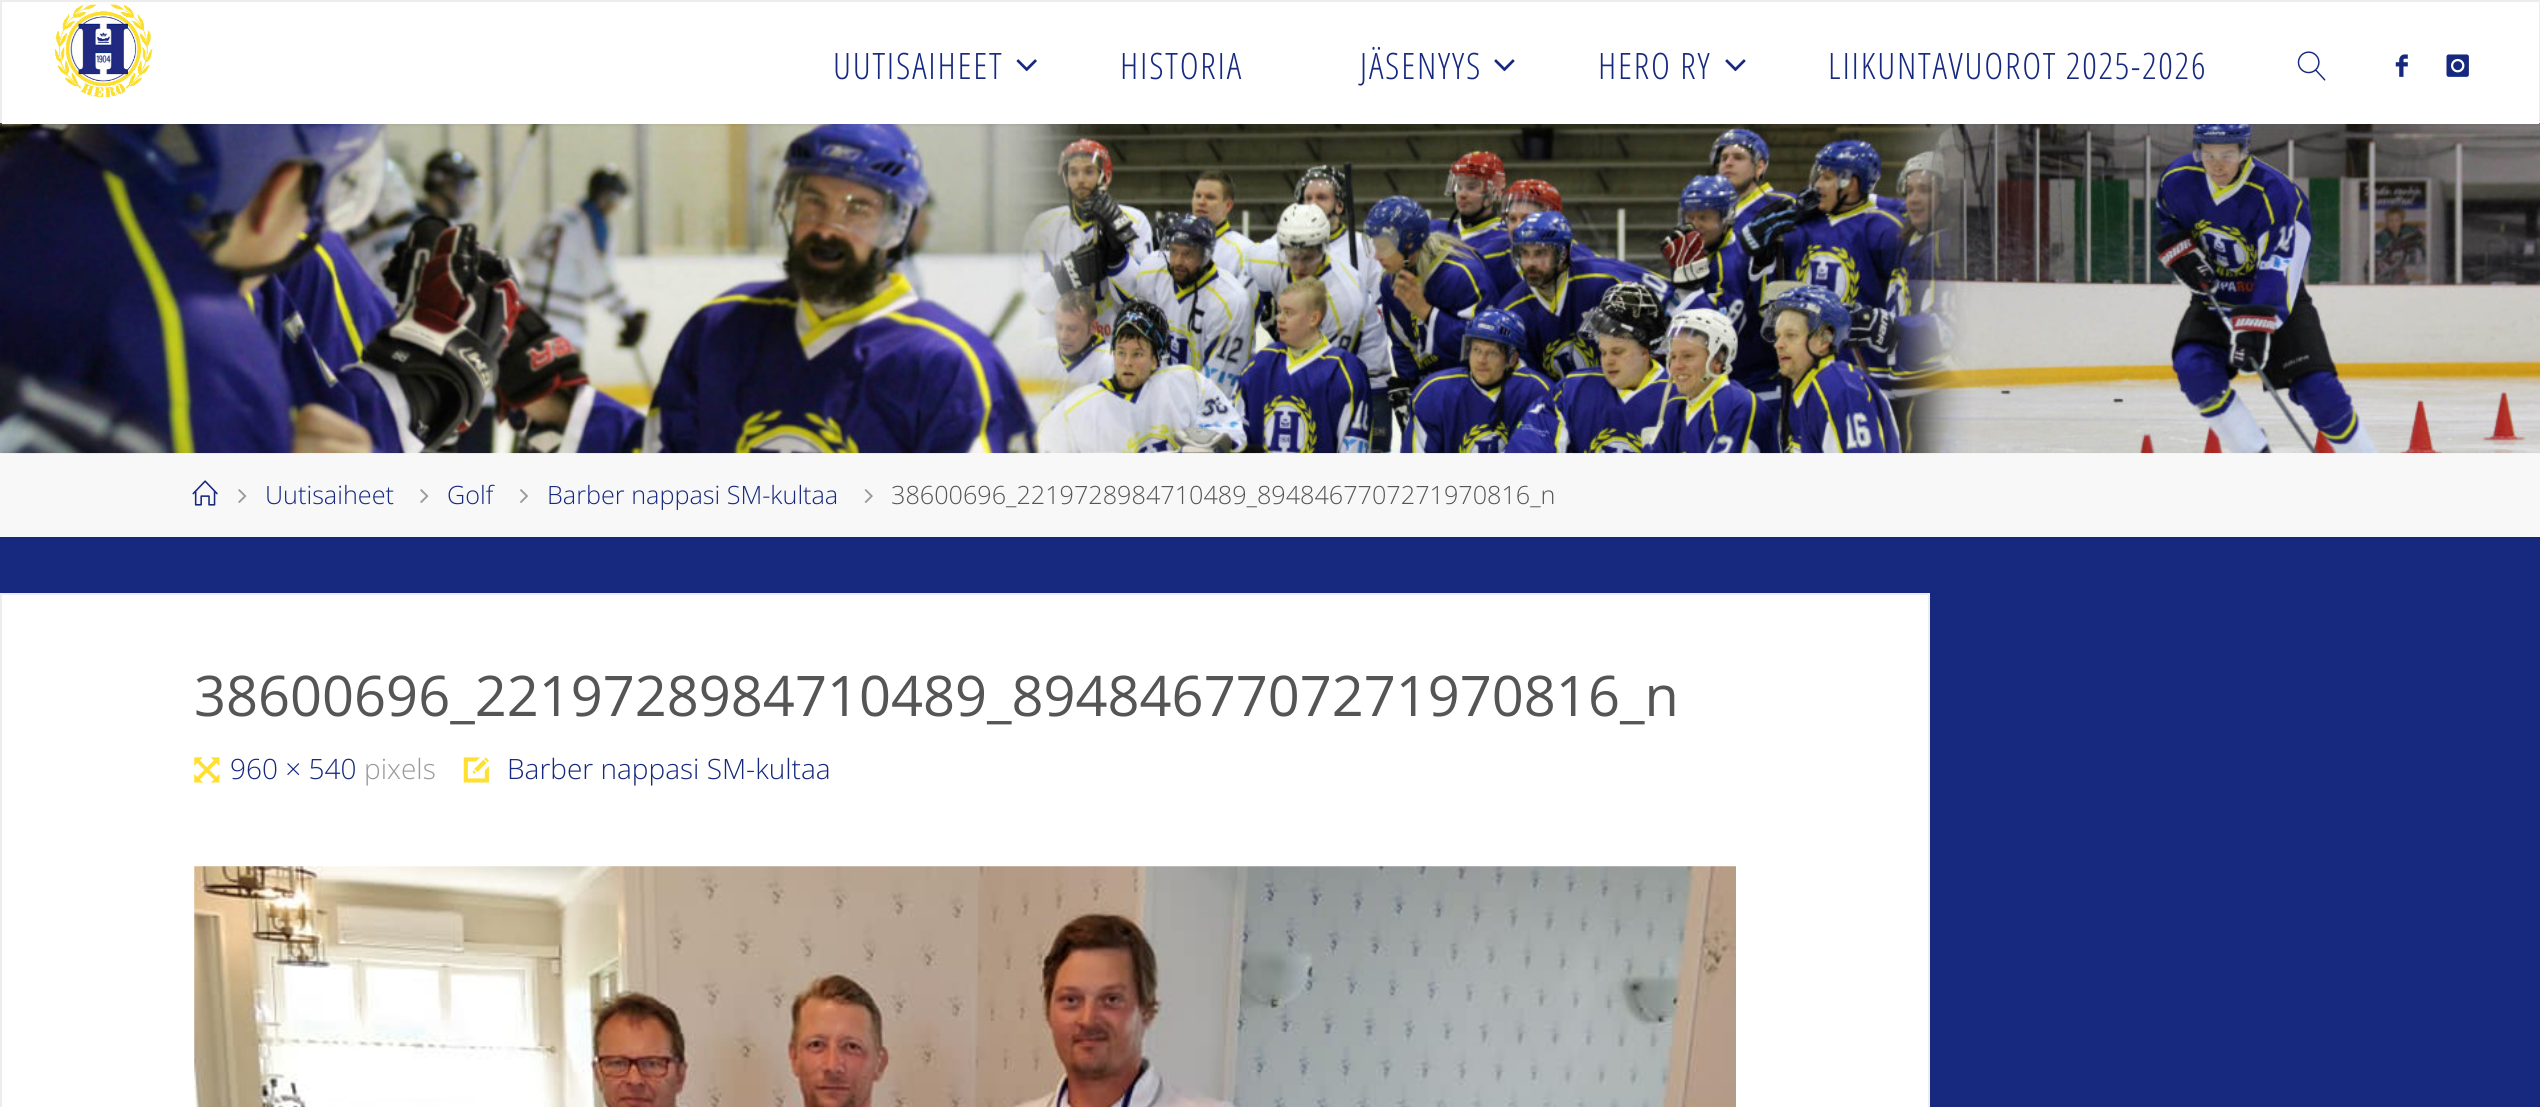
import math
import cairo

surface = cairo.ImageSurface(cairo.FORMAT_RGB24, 2540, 1107)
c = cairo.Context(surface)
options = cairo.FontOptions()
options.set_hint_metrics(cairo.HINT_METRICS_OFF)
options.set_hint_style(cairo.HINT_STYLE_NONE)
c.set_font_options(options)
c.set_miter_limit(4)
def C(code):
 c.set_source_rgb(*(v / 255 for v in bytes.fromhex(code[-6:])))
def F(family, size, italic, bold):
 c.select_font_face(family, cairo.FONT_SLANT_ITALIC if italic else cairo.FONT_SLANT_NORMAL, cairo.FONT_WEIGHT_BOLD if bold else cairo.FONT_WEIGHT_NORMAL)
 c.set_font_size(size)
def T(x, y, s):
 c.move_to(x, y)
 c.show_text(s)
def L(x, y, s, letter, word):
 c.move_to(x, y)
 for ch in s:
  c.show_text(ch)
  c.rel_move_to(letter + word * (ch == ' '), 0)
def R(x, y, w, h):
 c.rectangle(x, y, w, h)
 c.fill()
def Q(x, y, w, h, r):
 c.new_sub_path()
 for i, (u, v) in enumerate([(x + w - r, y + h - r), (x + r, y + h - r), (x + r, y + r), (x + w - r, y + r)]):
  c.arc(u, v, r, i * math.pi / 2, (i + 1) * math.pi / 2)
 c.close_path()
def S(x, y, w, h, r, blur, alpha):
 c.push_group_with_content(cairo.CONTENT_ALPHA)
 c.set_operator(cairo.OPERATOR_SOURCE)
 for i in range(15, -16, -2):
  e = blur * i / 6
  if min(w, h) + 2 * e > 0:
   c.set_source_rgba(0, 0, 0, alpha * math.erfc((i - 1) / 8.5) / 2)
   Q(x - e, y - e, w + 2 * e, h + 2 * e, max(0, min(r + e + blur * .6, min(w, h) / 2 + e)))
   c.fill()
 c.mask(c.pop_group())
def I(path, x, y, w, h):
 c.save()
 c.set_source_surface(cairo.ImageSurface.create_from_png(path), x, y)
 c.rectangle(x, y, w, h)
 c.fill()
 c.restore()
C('17297f')
c.paint()
C('f8f8f8')
R(0,453,2540,84)
I('7.png',0,123,2540,331)
C('000000')
S(0,0,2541,123,0,2.5,.2)
c.rectangle(1,1,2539,121)
C('ededed')
c.stroke()
C('ffffff')
R(2,2,2537,122)
I('1.png',54,4,99,93)
F('Open Sans Condensed Light',36.4,0,0)
C('17297f')
L(833,79,'UUTISAIHEET',1.75,0)
I('2.png',1016,59,21,13)
L(1120,79,'HISTORIA',1.75,0)
L(1360,79,'JÄSENYYS',1.75,0)
I('3.png',1494,59,21,13)
L(1598,79,'HERO RY',1.75,0)
I('3.png',1725,59,21,13)
L(1828,79,'LIIKUNTAVUOROT 2025-2026',1.75,0)
I('4.png',2297,51,29,30)
I('5.png',2395,54,13,23)
I('6.png',2446,54,23,23)
I('8.png',192,480,26,26)
I('9.png',238,489,9,14)
F('Open Sans Light',25.2,0,0)
T(265,504,'Uutisaiheet')
I('9.png',420,489,9,14)
T(447,504,'Golf')
I('10.png',520,489,8,14)
T(547,504,'Barber nappasi SM-kultaa')
I('11.png',864,489,9,14)
C('555555')
T(891,504,'38600696_2219728984710489_8948467707271970816_n')
C('ffffff')
c.rectangle(1,594,1928,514)
c.fill_preserve()
C('ededed')
c.stroke()
F('Open Sans',56,0,0)
C('555555')
T(194,716,'38600696_2219728984710489_8948467707271970816_n')
I('12.png',194,757,26,26)
F('Open Sans Light',28,0,0)
C('17297f')
T(230,779,'960 × 540')
C('9a9a9a')
T(364,779,'pixels')
I('13.png',463,757,26,26)
C('17297f')
T(507,779,'Barber nappasi SM-kultaa')
I('14.png',194,866,1542,241)
surface.write_to_png('o.png')
